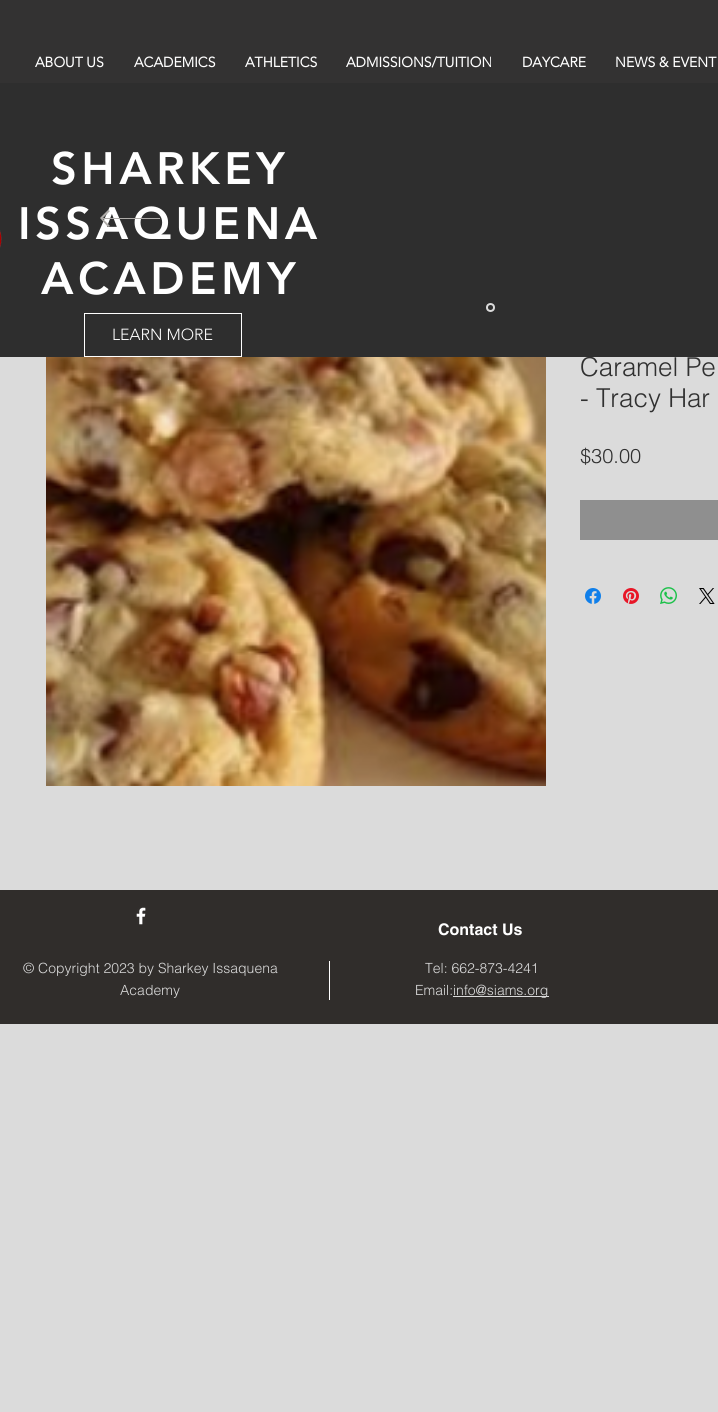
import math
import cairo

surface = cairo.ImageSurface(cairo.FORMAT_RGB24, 718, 1412)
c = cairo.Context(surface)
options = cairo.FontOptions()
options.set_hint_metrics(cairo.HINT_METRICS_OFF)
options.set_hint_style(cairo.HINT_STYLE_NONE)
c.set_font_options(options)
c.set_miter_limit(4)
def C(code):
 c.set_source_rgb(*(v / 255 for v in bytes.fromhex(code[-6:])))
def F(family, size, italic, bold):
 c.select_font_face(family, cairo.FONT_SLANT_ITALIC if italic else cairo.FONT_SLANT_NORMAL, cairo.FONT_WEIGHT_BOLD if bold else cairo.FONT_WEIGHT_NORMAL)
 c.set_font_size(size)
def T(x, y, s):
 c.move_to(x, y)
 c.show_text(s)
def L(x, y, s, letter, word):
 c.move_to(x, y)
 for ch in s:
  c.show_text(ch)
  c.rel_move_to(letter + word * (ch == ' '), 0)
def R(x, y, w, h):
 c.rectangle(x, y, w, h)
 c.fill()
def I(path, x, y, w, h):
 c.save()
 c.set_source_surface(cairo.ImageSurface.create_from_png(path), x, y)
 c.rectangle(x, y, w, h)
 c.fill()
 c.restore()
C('dbdbdb')
c.paint()
C('333232')
R(0,0,718,83)
F('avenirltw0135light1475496',14,0,1)
C('ffffff')
T(35,67,'ABOUT US')
T(134,67,'ACADEMICS')
T(245,67,'ATHLETICS')
T(346,67,'ADMISSIONS/TUITION')
T(522,67,'DAYCARE')
T(615,67,'NEWS & EVENT')
F('helvetica Light',26,0,0)
C('303030')
T(580,376,'Caramel Pe')
C('2e2e2e')
R(0,83,718,274)
I('1.png',0,230,2,18)
F('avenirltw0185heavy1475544 Black',45,0,0)
C('ffffff')
L(51,184,'SHARKEY',4.5,0)
L(18,239,'ISSAQUENA',4.5,0)
L(41,294,'ACADEMY',4.5,0)
c.rectangle(84.5,313.5,157,43)
c.set_line_width(1)
c.stroke()
F('avenirltw0135light1475496 Light',16,0,0)
T(112,340,'LEARN MORE')
C('afaca9')
c.new_path()
c.move_to(108,210)
c.line_to(110,211)
c.line_to(103,218)
c.line_to(160,218)
c.line_to(160,219)
c.line_to(103,219)
c.line_to(110,226)
c.line_to(108,227)
c.line_to(100,218)
c.close_path()
c.fill()
c.arc(490.5,307.5,3.5,0,2 * math.pi)
C('dbdbdb')
c.set_line_width(2)
c.stroke()
I('2.png',46,357,500,429)
F('helvetica Light',26,0,0)
C('303030')
T(580,407,'- Tracy Har')
F('helvetica Light',20,0,0)
T(580,463,'$30.00')
C('8f8f8f')
R(580,500,138,40)
I('3.png',585,588,16,16)
I('4.png',623,588,16,16)
I('5.png',660,587,17,17)
I('6.png',699,588,16,16)
C('302d2b')
R(0,890,718,134)
I('7.png',136,907,10,18)
F('helvetica',16,0,1)
C('ffffff')
T(438,935,'Contact Us')
F('helvetica Light',14,0,0)
C('dbdbdb')
T(23,973,'© Copyright 2023 by Sharkey Issaquena')
T(120,995,'Academy')
C('ffffff')
R(329,961,1,39)
C('dbdbdb')
T(425,973,'Tel: 662-873-4241')
T(415,995,'Email:')
R(453,996,96,1)
T(453,995,'info@siams.org')
surface.write_to_png('o.png')
